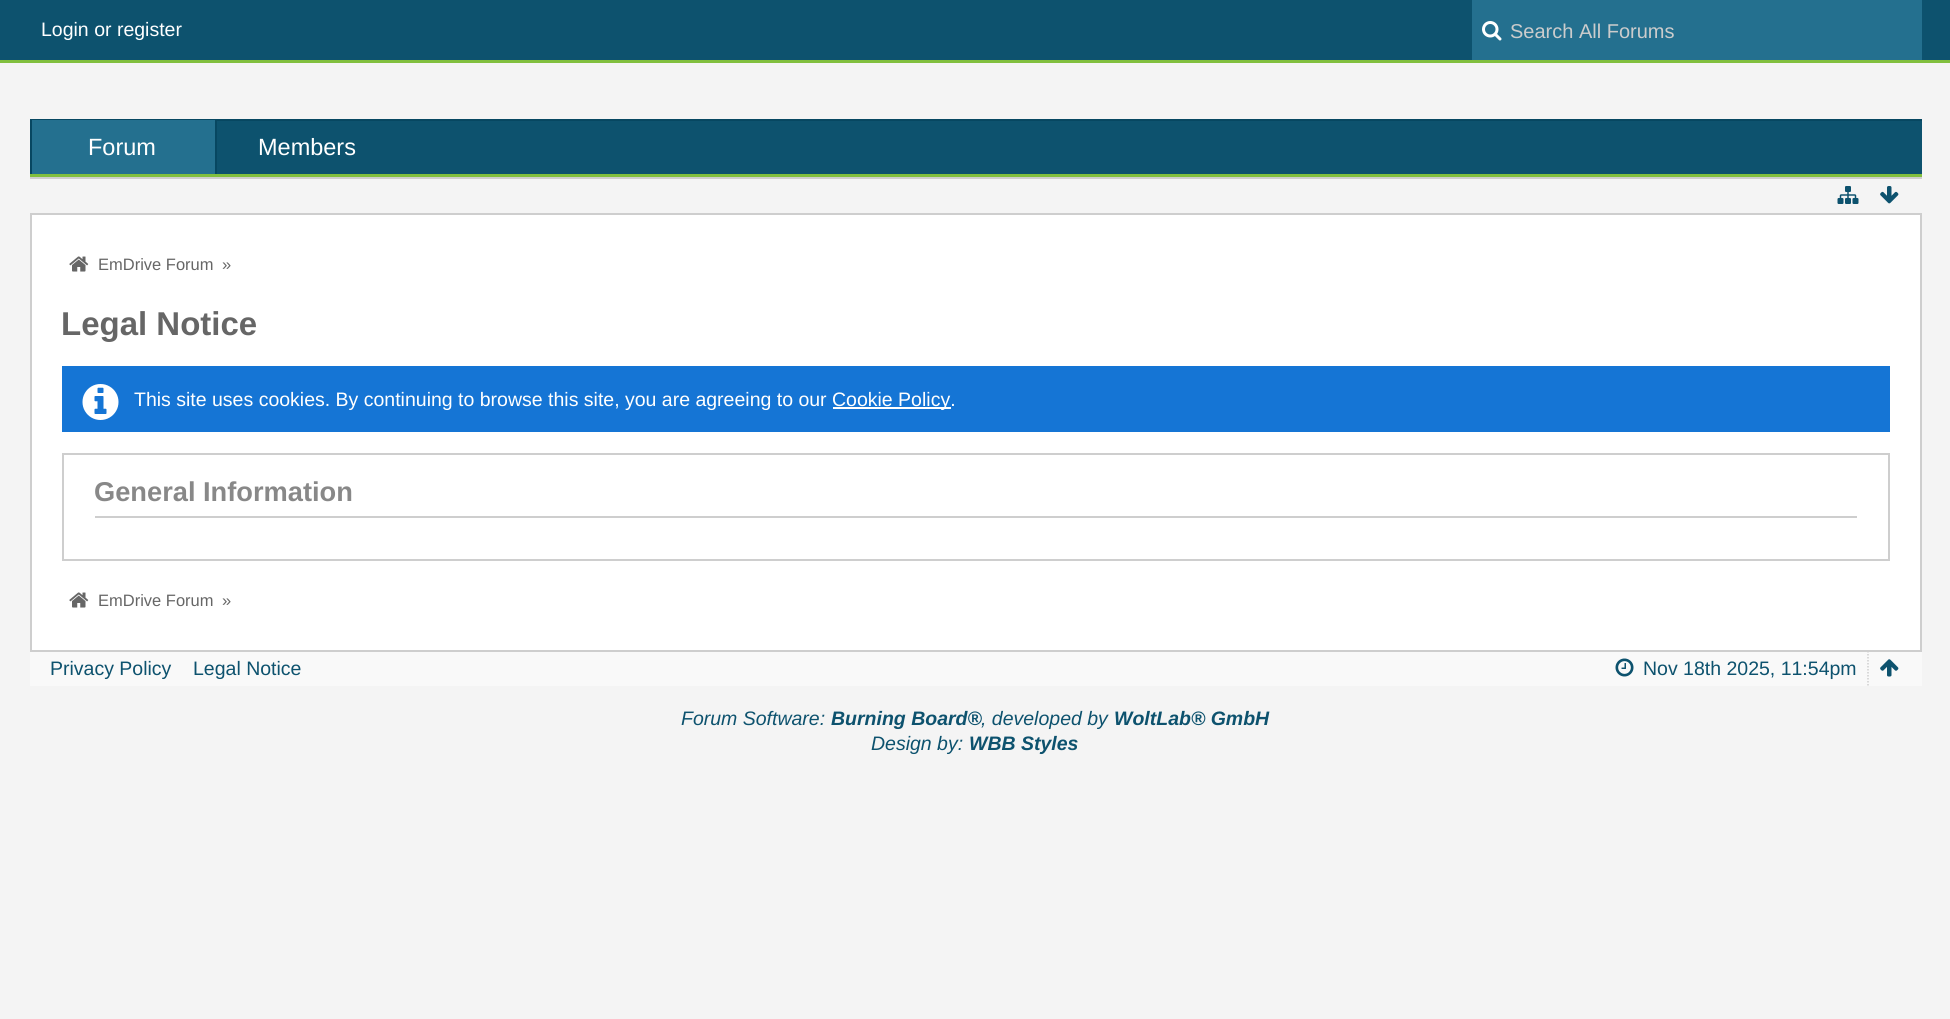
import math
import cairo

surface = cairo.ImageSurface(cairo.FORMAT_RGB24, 1950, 1019)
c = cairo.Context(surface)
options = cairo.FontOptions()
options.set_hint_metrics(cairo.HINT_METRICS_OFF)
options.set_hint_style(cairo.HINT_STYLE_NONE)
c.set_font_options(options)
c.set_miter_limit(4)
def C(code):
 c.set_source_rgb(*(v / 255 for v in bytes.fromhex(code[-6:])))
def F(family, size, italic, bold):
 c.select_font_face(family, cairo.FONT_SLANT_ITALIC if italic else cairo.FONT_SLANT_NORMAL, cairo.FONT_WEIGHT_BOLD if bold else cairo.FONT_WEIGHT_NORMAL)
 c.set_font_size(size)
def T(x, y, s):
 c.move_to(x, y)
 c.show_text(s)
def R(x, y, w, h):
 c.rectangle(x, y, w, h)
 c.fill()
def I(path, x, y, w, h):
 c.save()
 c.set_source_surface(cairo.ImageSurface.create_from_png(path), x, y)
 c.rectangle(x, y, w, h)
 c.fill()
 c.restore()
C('f4f4f4')
c.paint()
C('0d526e')
R(0,0,1950,60)
C('81bf3e')
R(0,60,1950,3)
F('Liberation Sans',19.5,0,0)
C('ffffff')
T(41,36,'Login or register')
C('24708f')
R(1472,0,450,60)
I('1.png',1482,21,20,20)
F('Liberation Sans',20,0,0)
C('cccccc')
T(1510,38,'Search All Forums')
C('0d526e')
R(217,121,1705,53)
C('074761')
R(30,119,1892,2)
C('81bf3e')
R(30,174,1892,3)
C('074761')
R(30,120,2,54)
C('24708f')
R(32,120,183,54)
C('074761')
R(215,120,2,54)
F('Liberation Sans',23.5,0,0)
C('ffffff')
T(88,155,'Forum')
T(258,155,'Members')
C('cecece')
R(30,177,1892,2)
R(30,213,1892,2)
I('2.png',1837,186,22,18)
I('3.png',1880,186,19,18)
C('ffffff')
R(32,215,1888,435)
C('cecece')
R(1920,215,2,435)
R(30,215,2,435)
I('4.png',69,256,20,16)
F('Liberation Sans',16.5,0,0)
C('666666')
T(98,270,'EmDrive Forum')
T(222,270,'»')
F('Liberation Sans',33,0,1)
T(61,335,'Legal Notice')
C('1575d5')
R(62,366,1828,66)
I('5.png',82,384,37,36)
F('Liberation Sans',19.5,0,0)
C('ffffff')
T(134,406,'This site uses cookies. By continuing to browse this site, you are agreeing to our')
R(833,407,118,2)
T(832,406,'Cookie Policy.')
c.rectangle(63,454,1826,106)
C('cecece')
c.stroke()
R(95,516,1762,2)
F('Liberation Sans',27.25,0,1)
C('888888')
T(94,501,'General Information')
I('4.png',69,592,20,16)
F('Liberation Sans',16.5,0,0)
C('666666')
T(98,606,'EmDrive Forum')
T(222,606,'»')
C('f9f9f9')
R(30,652,1892,34)
C('cecece')
R(30,650,1892,2)
F('Liberation Sans',19.5,0,0)
C('0d526e')
T(50,675,'Privacy Policy')
T(193,675,'Legal Notice')
c.new_path()
c.move_to(1868,651)
c.line_to(1868,685.5)
C('cecece')
c.set_line_width(1.5)
c.set_dash([1.5,1.5])
c.stroke()
I('6.png',1615,658,19,19)
C('0d526e')
T(1643,675,'Nov 18th 2025, 11:54pm')
I('7.png',1880,659,19,18)
F('Liberation Sans',19.5,1,0)
T(681,725,'Forum Software:')
F('Liberation Sans',19.5,1,1)
T(831,725,'Burning Board®')
F('Liberation Sans',19.5,1,0)
T(981,725,', developed by')
F('Liberation Sans',19.5,1,1)
T(1114,725,'WoltLab® GmbH')
F('Liberation Sans',19.5,1,0)
T(871,750,'Design by:')
F('Liberation Sans',19.5,1,1)
T(969,750,'WBB Styles')
surface.write_to_png('o.png')
